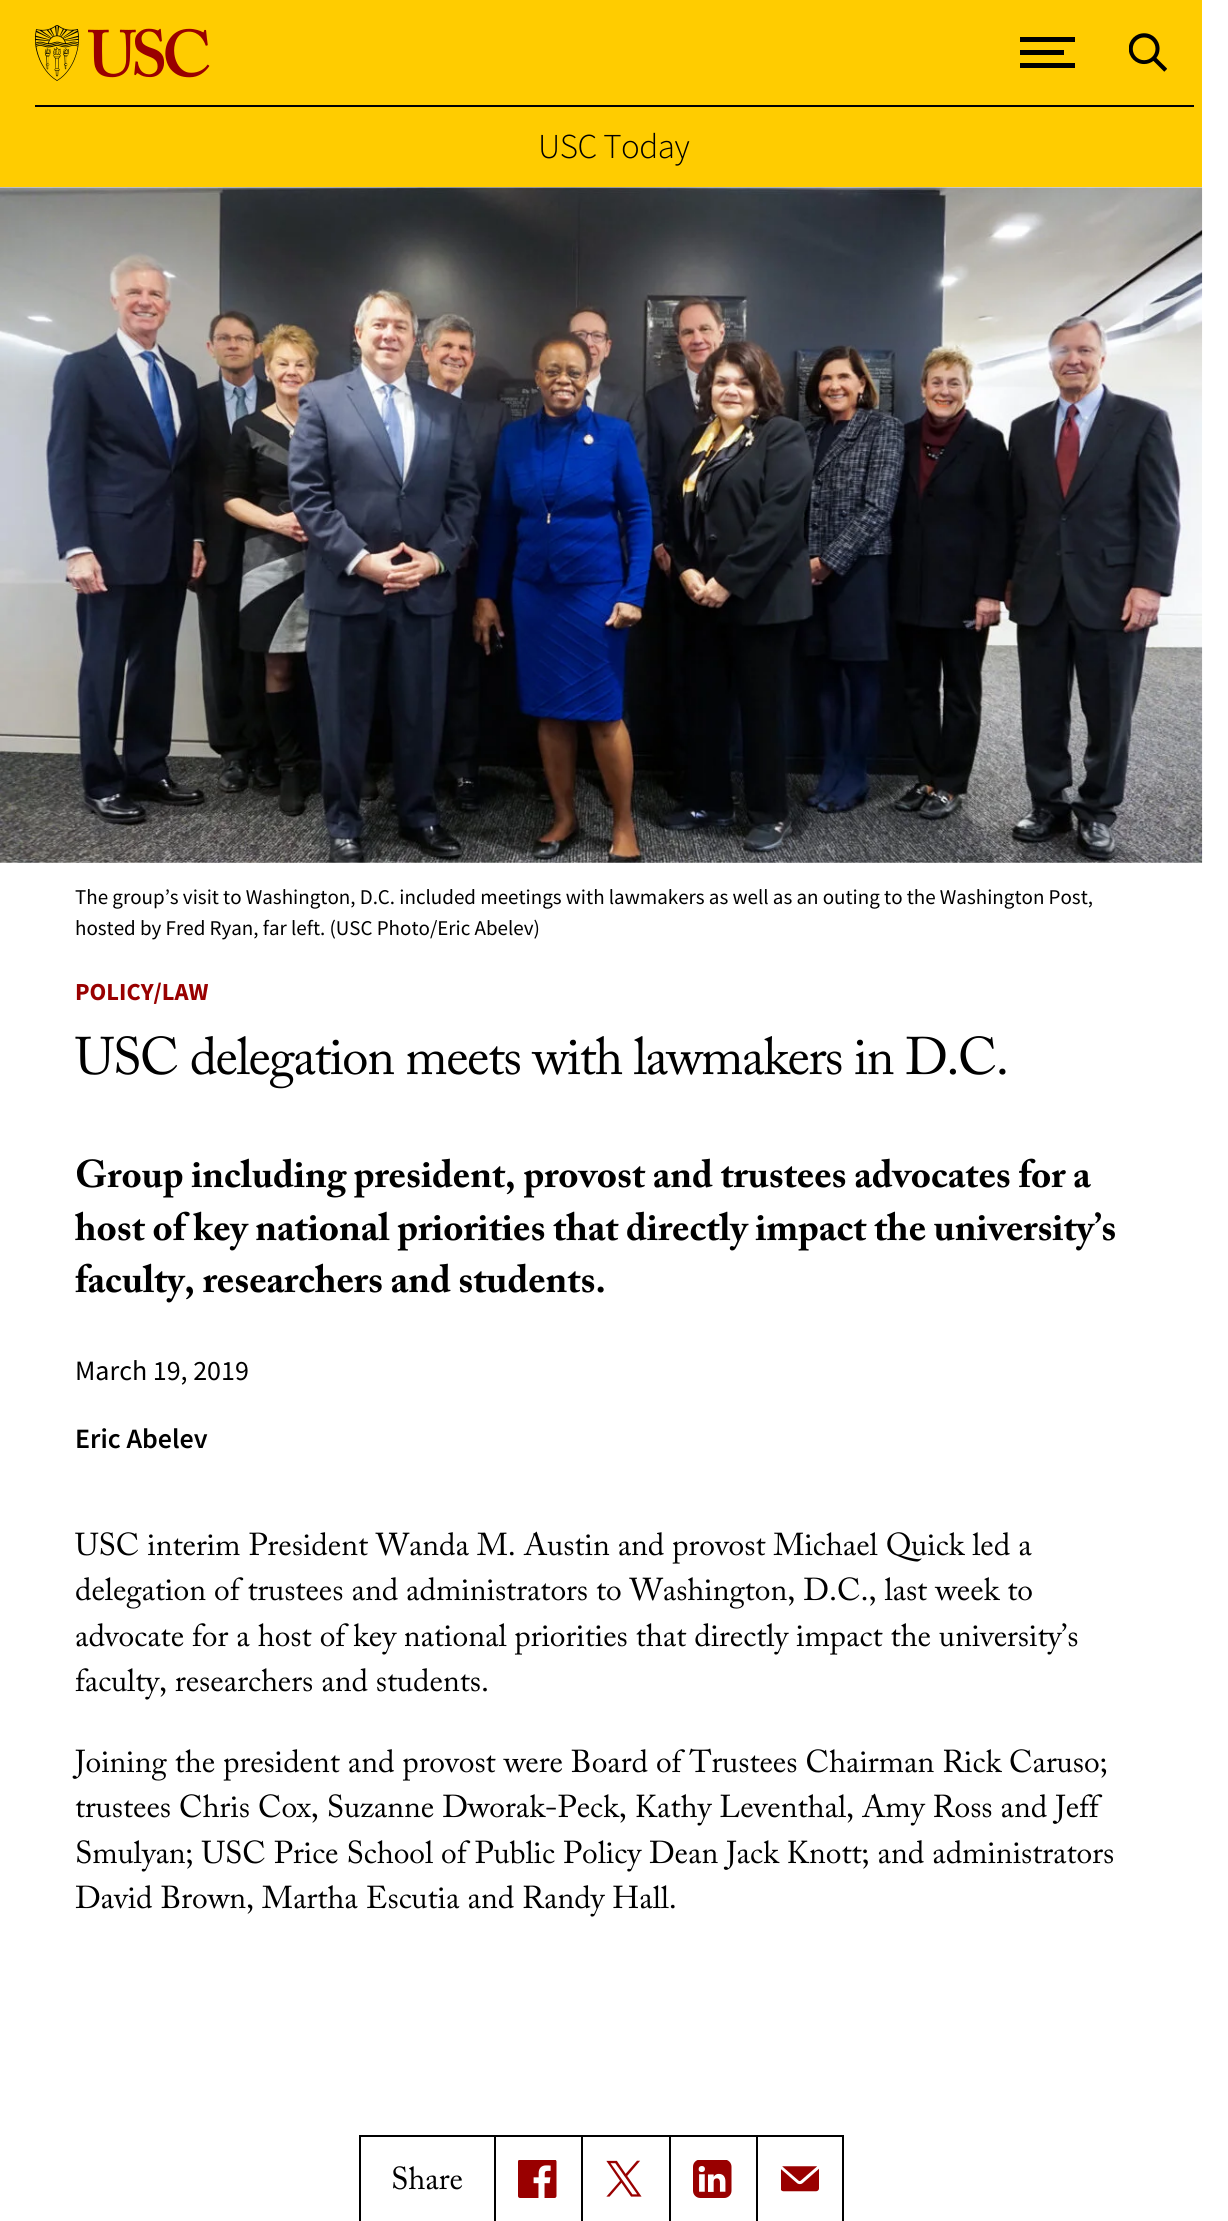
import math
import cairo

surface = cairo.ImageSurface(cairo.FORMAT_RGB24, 1228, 2221)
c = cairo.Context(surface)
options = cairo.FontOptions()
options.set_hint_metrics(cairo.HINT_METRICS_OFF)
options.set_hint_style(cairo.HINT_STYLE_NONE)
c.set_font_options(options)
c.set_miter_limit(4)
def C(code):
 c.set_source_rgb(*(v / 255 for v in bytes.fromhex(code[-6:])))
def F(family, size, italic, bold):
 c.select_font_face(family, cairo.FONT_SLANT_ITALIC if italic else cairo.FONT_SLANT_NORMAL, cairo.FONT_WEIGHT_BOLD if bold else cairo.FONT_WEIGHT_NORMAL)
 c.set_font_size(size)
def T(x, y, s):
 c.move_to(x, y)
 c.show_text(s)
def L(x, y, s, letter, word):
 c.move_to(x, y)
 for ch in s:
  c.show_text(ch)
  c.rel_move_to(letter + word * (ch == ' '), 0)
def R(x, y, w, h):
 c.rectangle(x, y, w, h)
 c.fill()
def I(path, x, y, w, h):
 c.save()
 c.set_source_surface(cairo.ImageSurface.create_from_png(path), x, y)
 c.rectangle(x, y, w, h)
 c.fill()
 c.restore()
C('ffffff')
c.paint()
C('ffcc00')
R(0,0,1202,187)
C('000000')
c.new_path()
c.move_to(1020,37)
c.line_to(1075,37)
c.line_to(1075,42)
c.line_to(1020,42)
c.close_path()
c.move_to(1020,50)
c.line_to(1064,50)
c.line_to(1064,55)
c.line_to(1020,55)
c.close_path()
c.move_to(1020,63)
c.line_to(1075,63)
c.line_to(1075,68)
c.line_to(1020,68)
c.close_path()
c.fill()
I('1.png',1129,33,38,39)
I('2.png',35,25,175,56)
R(35,105,1159,2)
F('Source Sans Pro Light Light',35,0,0)
L(538,158,'USC Today',-.5,0)
I('3.png',0,187,1203,676)
F('Source Sans Pro',21,0,0)
T(75,904,'The group’s visit to Washington, D.C. included meetings with lawmakers as well as an outing to the Washington Post,')
T(75,935,'hosted by Fred Ryan, far left. (USC Photo/Eric Abelev)')
F('Source Sans Pro',24.5,0,1)
C('990000')
T(75,1000,'POLICY/LAW')
F('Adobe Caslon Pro',52.5,0,0)
C('000000')
L(75,1074,'USC delegation meets with lawmakers in D.C.',-1.45,0)
F('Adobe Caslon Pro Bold',38.5,0,1)
T(75,1187,'Group including president, provost and trustees advocates for a')
T(75,1240,'host of key national priorities that directly impact the university’s')
T(75,1292,'faculty, researchers and students.')
F('Source Sans Pro',28,0,0)
T(75,1380,'March 19, 2019')
F('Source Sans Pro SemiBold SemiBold',28,0,0)
T(75,1448,'Eric Abelev')
R(359,2135,397,2)
R(359,2135,2,86)
F('Adobe Caslon Pro',31.5,0,0)
T(391,2189,'Share')
R(494,2135,2,86)
I('4.png',518,2160,39,38)
R(581,2135,2,86)
I('5.png',606,2160,36,37)
R(669,2135,2,86)
I('6.png',693,2160,39,38)
c.rectangle(757,2136,86,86)
c.stroke()
I('7.png',781,2166,38,26)
T(75,1555,'USC interim President Wanda M. Austin and provost Michael Quick led a')
T(75,1600,'delegation of trustees and administrators to Washington, D.C., last week to')
T(75,1646,'advocate for a host of key national priorities that directly impact the university’s')
T(75,1691,'faculty, researchers and students.')
T(75,1772,'Joining the president and provost were Board of Trustees Chairman Rick Caruso;')
T(75,1817,'trustees Chris Cox, Suzanne Dworak-Peck, Kathy Leventhal, Amy Ross and Jeff')
T(75,1863,'Smulyan; USC Price School of Public Policy Dean Jack Knott; and administrators')
T(75,1908,'David Brown, Martha Escutia and Randy Hall.')
surface.write_to_png('o.png')
